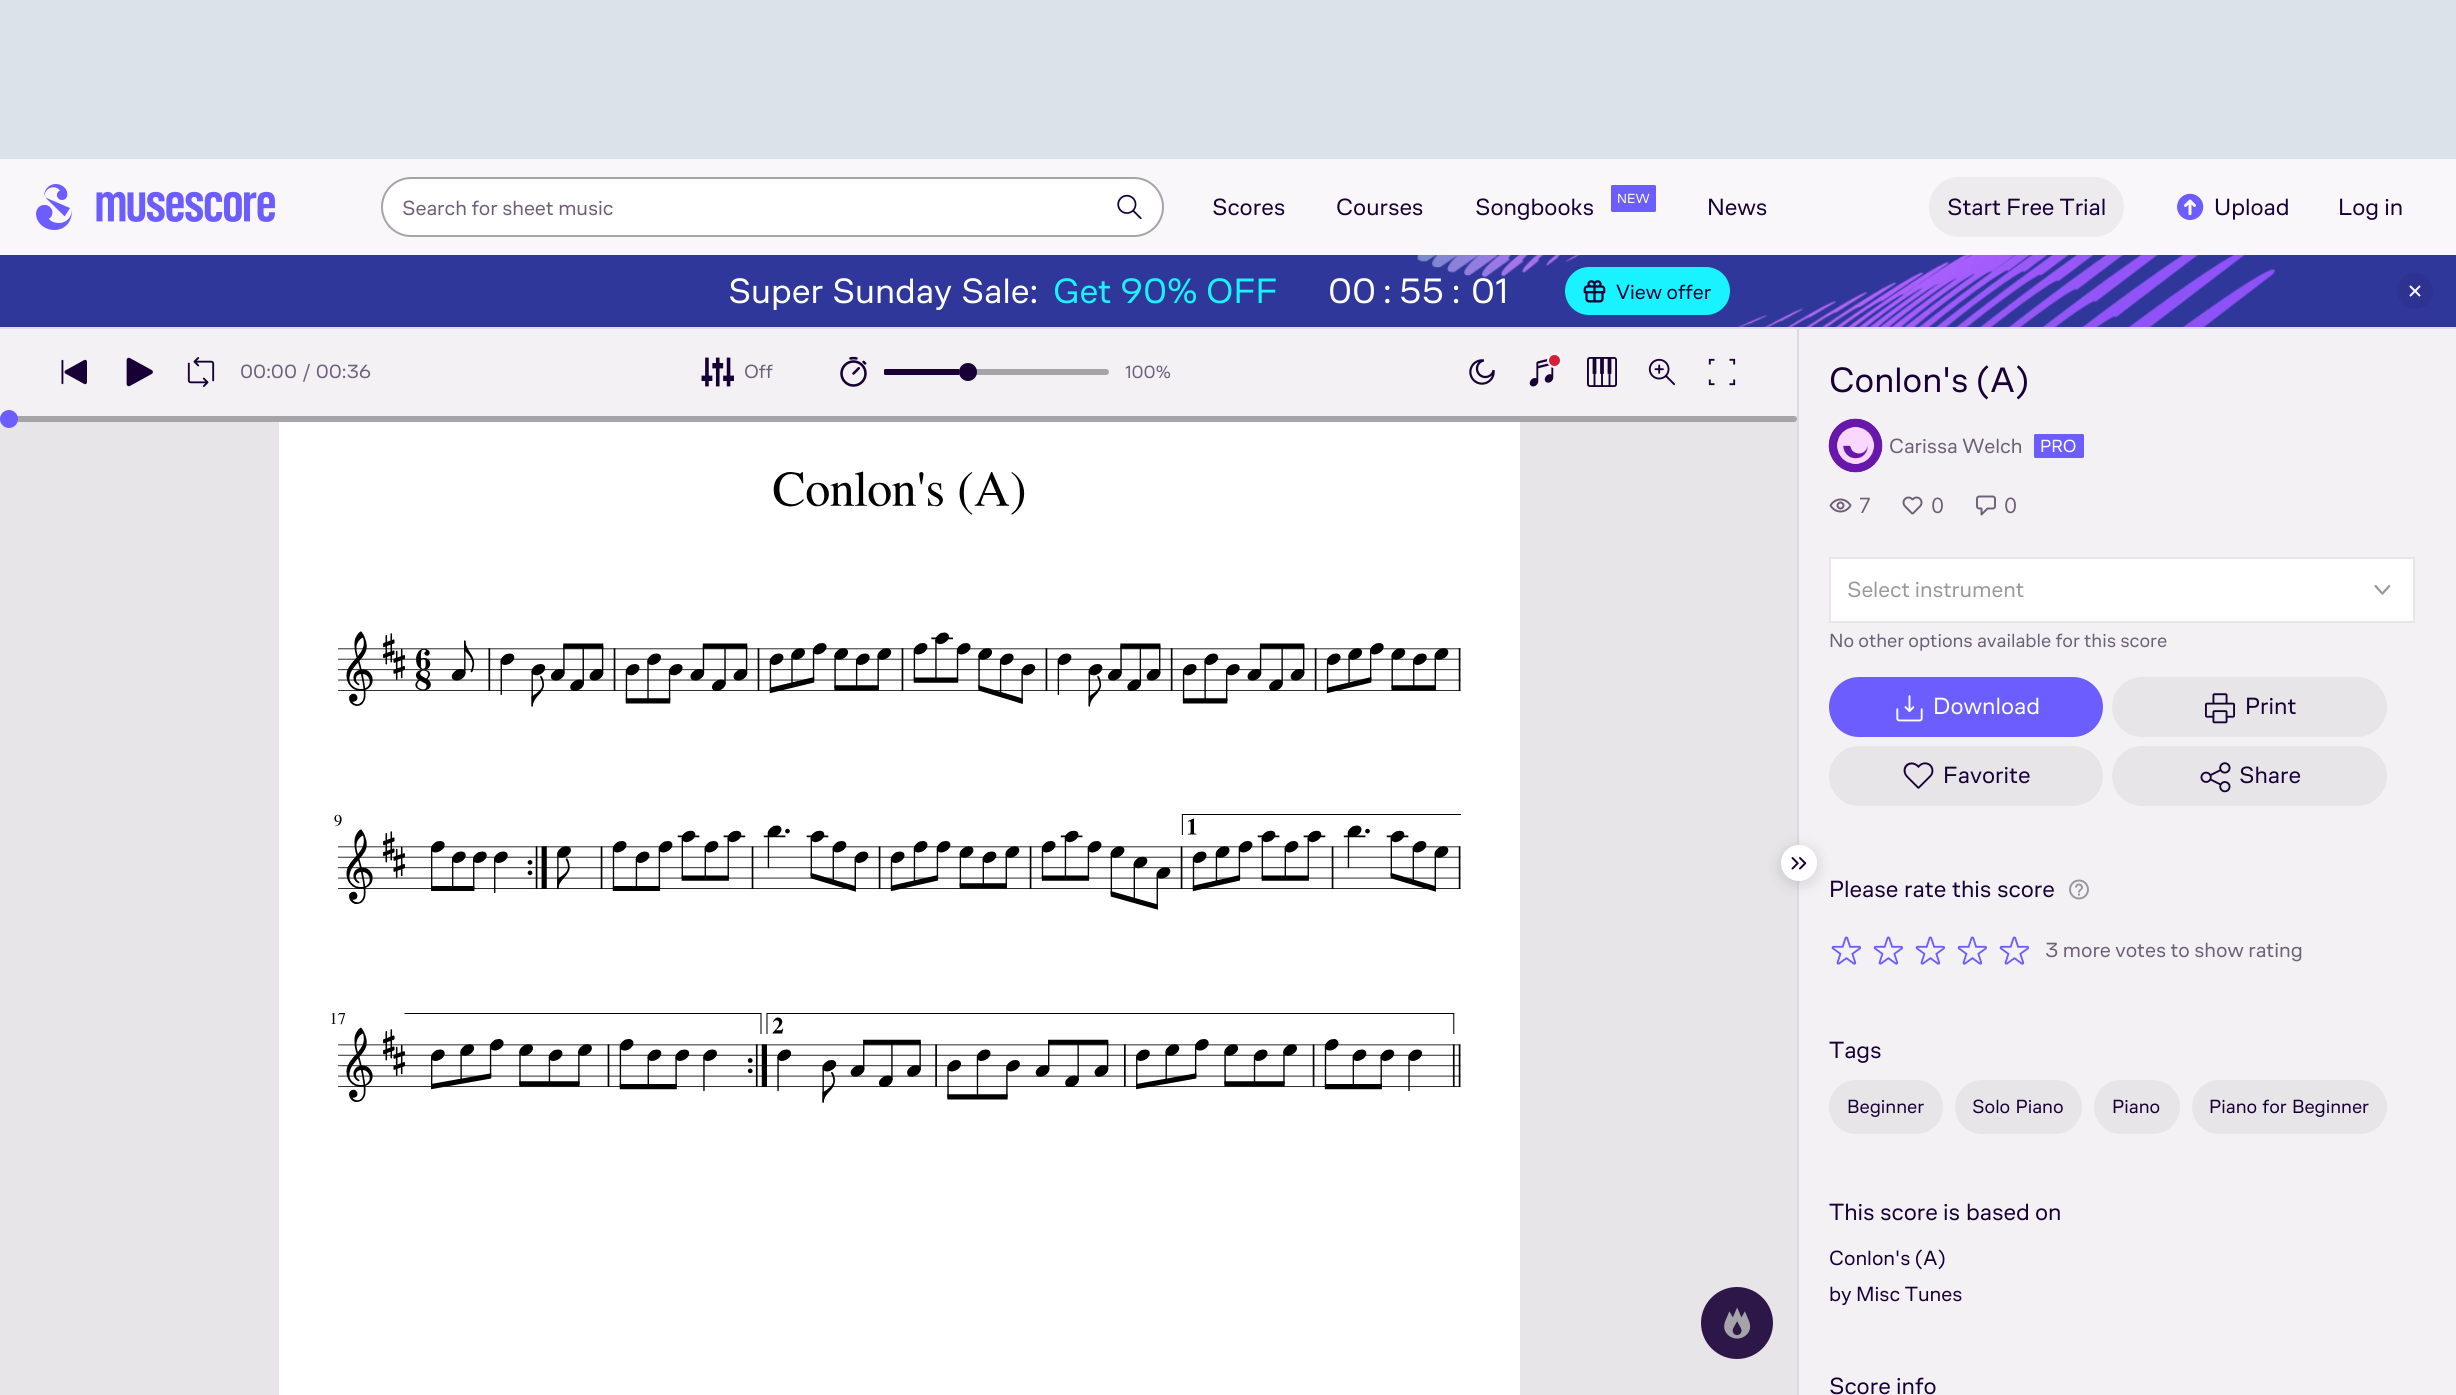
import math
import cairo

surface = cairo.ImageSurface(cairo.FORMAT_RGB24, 2456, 1395)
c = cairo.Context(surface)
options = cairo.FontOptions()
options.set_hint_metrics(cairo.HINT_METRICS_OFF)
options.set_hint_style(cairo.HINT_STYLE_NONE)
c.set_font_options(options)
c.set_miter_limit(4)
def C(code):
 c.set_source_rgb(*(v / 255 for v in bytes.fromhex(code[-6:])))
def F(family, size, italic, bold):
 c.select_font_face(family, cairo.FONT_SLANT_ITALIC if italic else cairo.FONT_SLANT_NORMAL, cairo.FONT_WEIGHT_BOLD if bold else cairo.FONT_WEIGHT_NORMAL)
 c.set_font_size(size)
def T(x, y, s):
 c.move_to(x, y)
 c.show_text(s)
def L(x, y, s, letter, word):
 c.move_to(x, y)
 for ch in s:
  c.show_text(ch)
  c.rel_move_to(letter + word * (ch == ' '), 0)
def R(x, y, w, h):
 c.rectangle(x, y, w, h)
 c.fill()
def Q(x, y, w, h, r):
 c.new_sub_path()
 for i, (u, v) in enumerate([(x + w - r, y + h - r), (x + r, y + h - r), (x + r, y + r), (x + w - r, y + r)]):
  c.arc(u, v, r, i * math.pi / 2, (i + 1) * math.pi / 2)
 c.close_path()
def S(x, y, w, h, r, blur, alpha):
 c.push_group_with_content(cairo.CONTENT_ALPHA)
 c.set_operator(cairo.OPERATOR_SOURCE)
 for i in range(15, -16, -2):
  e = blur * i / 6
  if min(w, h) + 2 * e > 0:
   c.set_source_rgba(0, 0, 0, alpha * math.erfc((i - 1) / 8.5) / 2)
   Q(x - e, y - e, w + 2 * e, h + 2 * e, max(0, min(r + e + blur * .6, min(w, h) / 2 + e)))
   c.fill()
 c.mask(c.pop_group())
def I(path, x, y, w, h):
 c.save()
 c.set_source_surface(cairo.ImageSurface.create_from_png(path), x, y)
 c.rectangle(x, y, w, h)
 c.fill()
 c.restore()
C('f9f7fa')
c.paint()
C('e2dee6')
R(0,327,2456,2)
C('dae3e9')
R(0,0,2456,159)
I('1.png',36,184,239,46)
C('ffffff')
Q(382,178,781,58,29)
c.fill_preserve()
C('a7a4a9')
c.stroke()
F('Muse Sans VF',21,0,0)
C('6e5f79')
T(402,215,'Search for sheet music')
I('2.png',1117,194,25,26)
F('Muse Sans VF',24,0,0)
C('180036')
T(1212,215,'Scores')
T(1336,215,'Courses')
T(1475,215,'Songbooks')
C('6b5dfe')
Q(1611,185,45,27,1.5)
c.fill()
F('Muse Sans VF',13.5,0,0)
C('ffffff')
T(1617,203,'NEW')
F('Muse Sans VF',24,0,0)
C('180036')
T(1707,215,'News')
C('edebee')
Q(1929,177,195,60,30)
c.fill()
C('180036')
T(1947,215,'Start Free Trial')
I('3.png',2177,193,27,27)
T(2214,215,'Upload')
T(2338,215,'Log in')
C('30379b')
R(0,255,2456,72)
F('Muse Sans VF',36,0,0)
C('ffffff')
T(728,303,'Super')
T(832,303,'Sunday')
T(961,303,'Sale:')
C('19f3ff')
T(1053,303,'Get')
T(1120,303,'90%')
T(1206,303,'OFF')
C('ffffff')
T(1328,303,'00')
T(1383,303,':')
I('4.png',1417,255,858,72)
T(1399,303,'55 :')
T(1471,303,'01')
C('19f3ff')
Q(1565,267,165,48,24)
c.fill()
I('5.png',1583,280,23,23)
F('Muse Sans VF',21,0,0)
C('180036')
T(1616,299,'View offer')
C('2e3291')
c.new_path()
c.arc(2415,291,18,0,2 * math.pi)
c.fill()
I('6.png',2409,285,12,12)
C('e7e5e8')
R(0,416,1797,979)
C('a7a4a9')
Q(0,416,1797,6,3)
c.fill()
C('f3f1f4')
R(0,329,1797,87)
C('6b5dfe')
c.arc(9,419,9,0,2 * math.pi)
c.fill()
I('7.png',61,359,26,26)
I('8.png',126,357,27,30)
I('9.png',187,357,28,30)
F('Muse Sans VF',19.5,0,0)
C('6e5f79')
T(240,378,'00:00 / 00:36')
I('10.png',701,357,33,30)
T(744,378,'Off')
I('11.png',840,356,27,31)
C('a7a4a9')
Q(884,369,225,6,3)
c.fill()
C('180036')
c.new_path()
c.move_to(885.5,369)
c.line_to(959,369)
c.line_to(959,375)
c.line_to(885.5,375)
c.curve_to(884.5,375,884,374.5,884,373.5)
c.line_to(884,370.5)
c.curve_to(884,369.5,884.5,369,885.5,369)
c.close_path()
c.fill()
c.arc(968,372,9,0,2 * math.pi)
c.fill()
F('Muse Sans VF',18,0,0)
C('6e5f79')
T(1125,378,'100%')
I('12.png',1469,359,26,26)
I('13.png',1529,358,25,29)
C('d32139')
c.arc(1554.5,360.5,6.5,0,2 * math.pi)
c.fill_preserve()
C('f9f7fa')
c.stroke()
I('14.png',1587,357,30,30)
I('15.png',1648,358,28,28)
I('16.png',1708,358,28,28)
C('ffffff')
R(279,422,1241,973)
I('17.png',331,471,1130,632)
C('2d1748')
c.arc(1737,1323,36,0,2 * math.pi)
c.fill()
I('18.png',1724,1307,27,32)
C('f3f1f4')
R(1799,329,657,1066)
C('ddd9e1')
R(1797,329,2,1066)
C('000000')
S(1781,848,36,36,18,7.5,.14)
C('ffffff')
c.arc(1799,863,18,0,2 * math.pi)
c.fill()
I('19.png',1791,857,16,13)
F('Muse Sans VF',36,0,0)
C('180036')
T(1829,392,'Conlon\'s (A)')
I('20.png',1828,418,55,55)
F('Muse Sans VF',21,0,0)
C('6e5f79')
T(1889,453,'Carissa Welch')
C('6b5dfe')
Q(2034,434,50,24,1.5)
c.fill()
F('Muse Sans VF',18,0,0)
C('ffffff')
T(2040,452,'PRO')
I('21.png',1829,498,23,15)
F('Inter',21,0,0)
C('6e5f79')
T(1859,513,'7')
I('22.png',1902,496,21,19)
T(1931,513,'0')
I('23.png',1976,495,20,21)
T(2004,513,'0')
C('ffffff')
c.rectangle(1830,558,584,64)
c.fill_preserve()
C('e7e5e8')
c.stroke()
F('Muse Sans VF',22.5,0,0)
C('9b989d')
T(1847,597,'Select instrument')
I('24.png',2374,585,17,10)
F('Muse Sans VF',19.5,0,0)
C('6e5f79')
T(1829,647,'No other options available for this score')
C('6b5dfe')
Q(1829,677,274,60,30)
c.fill()
I('25.png',1896,695,27,27)
F('Muse Sans VF',24,0,0)
C('ffffff')
T(1933,714,'Download')
C('e7e5e8')
Q(2112,677,275,60,30)
c.fill()
I('26.png',2205,693,30,31)
C('180036')
T(2245,714,'Print')
C('e7e5e8')
Q(1829,746,274,60,30)
c.fill()
I('27.png',1903,762,31,27)
C('180036')
T(1943,783,'Favorite')
C('e7e5e8')
Q(2112,746,275,60,30)
c.fill()
I('28.png',2200,762,31,31)
C('180036')
T(2239,783,'Share')
T(1829,897,'Please')
T(1904,897,'rate')
T(1952,897,'this')
T(1997,897,'score')
I('29.png',2069,879,20,21)
I('30.png',1831,936,30,29)
I('30.png',1873,936,30,29)
I('30.png',1915,936,30,29)
I('30.png',1957,936,30,29)
I('30.png',1999,936,30,29)
F('Muse Sans VF',21,0,0)
C('6e5f79')
T(2045,957,'3 more votes to show rating')
F('Muse Sans VF',24,0,0)
C('180036')
T(1829,1058,'Tags')
C('e7e5e8')
Q(1829,1080,114,54,27)
c.fill()
F('Muse Sans VF',19.5,0,0)
C('180036')
T(1847,1113,'Beginner')
C('e7e5e8')
Q(1955,1080,127,54,27)
c.fill()
C('180036')
L(1972,1113,'Solo Piano',0,1)
C('e7e5e8')
Q(2094,1080,86,54,27)
c.fill()
C('180036')
T(2112,1113,'Piano')
C('e7e5e8')
Q(2192,1080,195,54,27)
c.fill()
C('180036')
L(2209,1113,'Piano for Beginner',0,1)
F('Muse Sans VF',24,0,0)
T(1829,1220,'This')
T(1880,1220,'score')
T(1943,1220,'is')
T(1966,1220,'based')
T(2035,1220,'on')
F('Muse Sans VF',21,0,0)
T(1829,1265,'Conlon\'s (A)')
T(1829,1301,'by Misc Tunes')
F('Muse Sans VF',24,0,0)
T(1829,1394,'Score')
T(1896,1394,'info')
surface.write_to_png('o.png')
